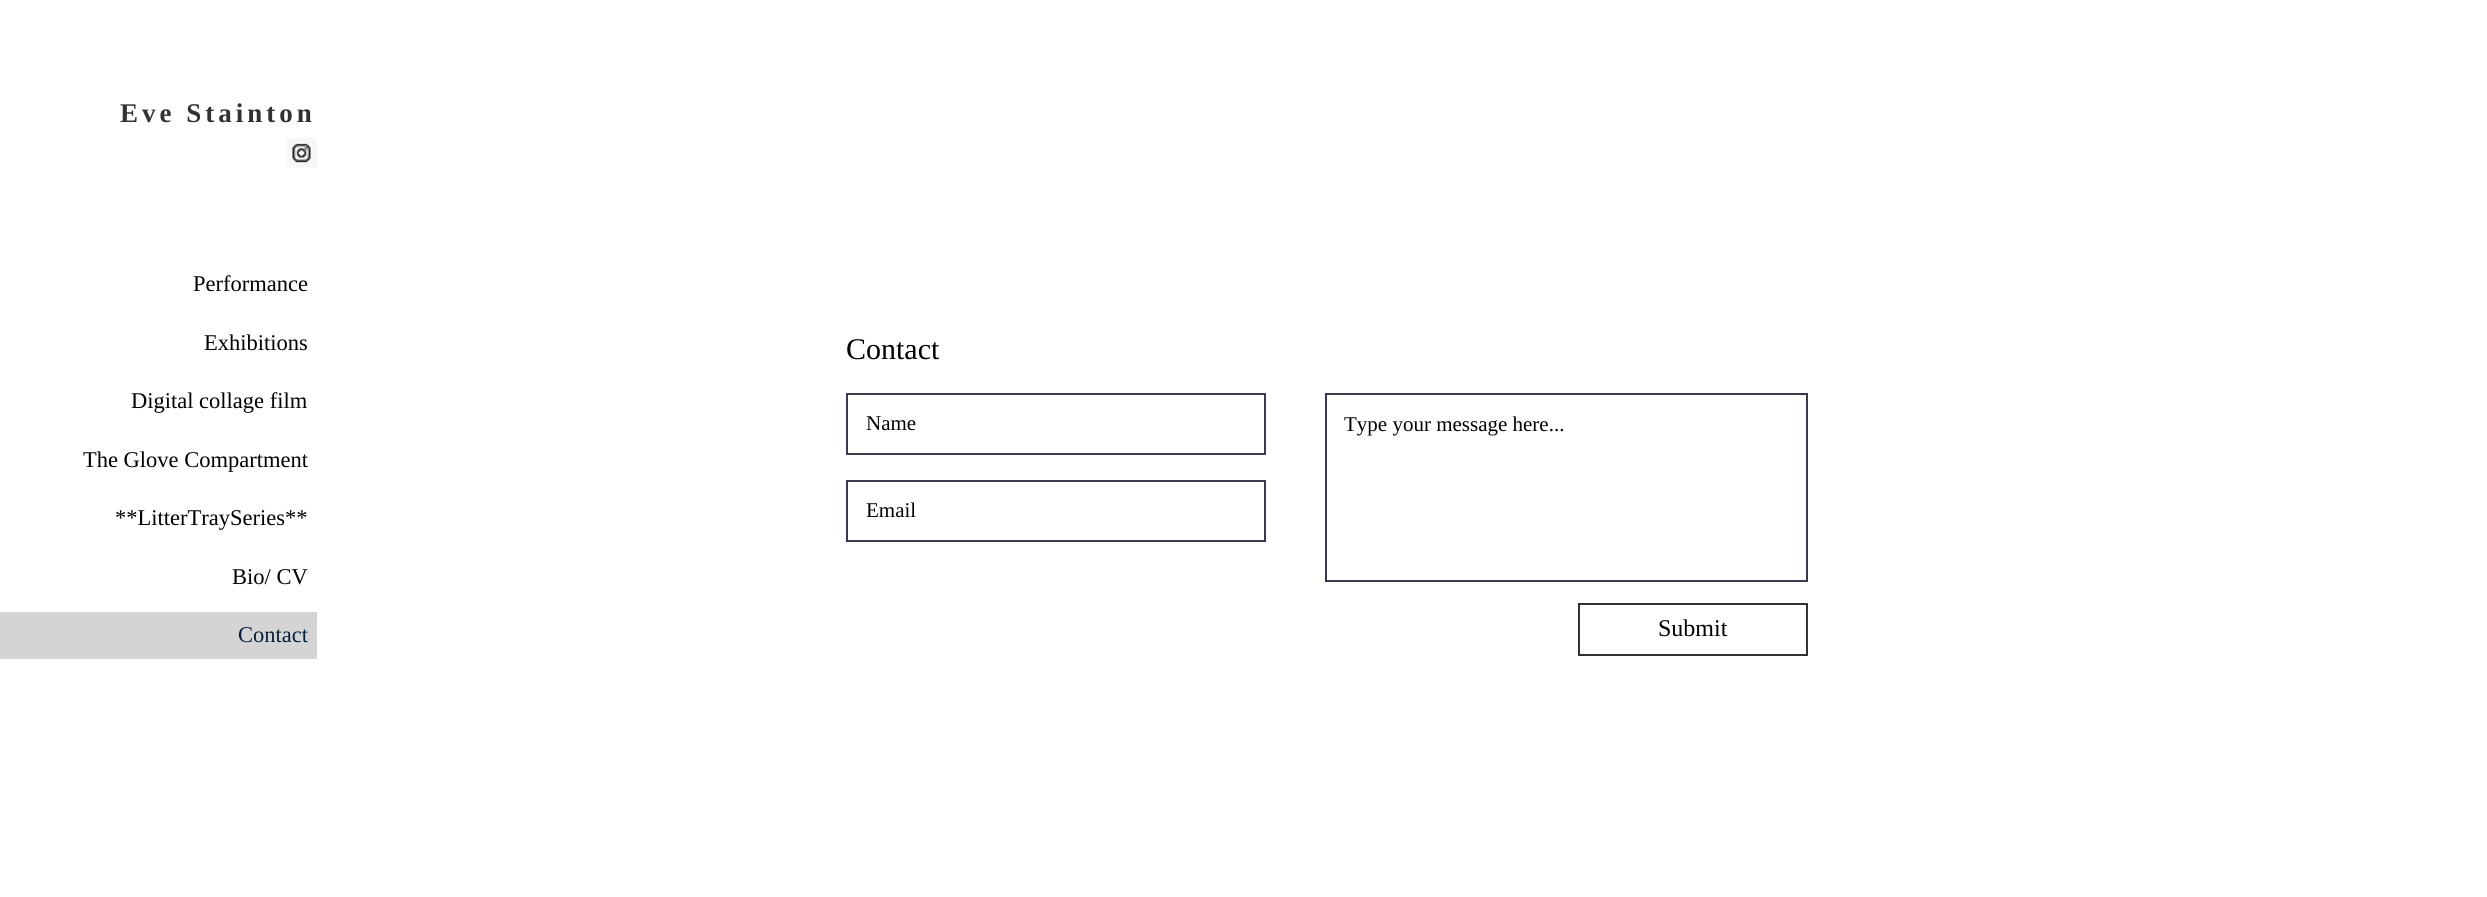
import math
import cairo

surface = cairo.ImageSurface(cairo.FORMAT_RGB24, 2487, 897)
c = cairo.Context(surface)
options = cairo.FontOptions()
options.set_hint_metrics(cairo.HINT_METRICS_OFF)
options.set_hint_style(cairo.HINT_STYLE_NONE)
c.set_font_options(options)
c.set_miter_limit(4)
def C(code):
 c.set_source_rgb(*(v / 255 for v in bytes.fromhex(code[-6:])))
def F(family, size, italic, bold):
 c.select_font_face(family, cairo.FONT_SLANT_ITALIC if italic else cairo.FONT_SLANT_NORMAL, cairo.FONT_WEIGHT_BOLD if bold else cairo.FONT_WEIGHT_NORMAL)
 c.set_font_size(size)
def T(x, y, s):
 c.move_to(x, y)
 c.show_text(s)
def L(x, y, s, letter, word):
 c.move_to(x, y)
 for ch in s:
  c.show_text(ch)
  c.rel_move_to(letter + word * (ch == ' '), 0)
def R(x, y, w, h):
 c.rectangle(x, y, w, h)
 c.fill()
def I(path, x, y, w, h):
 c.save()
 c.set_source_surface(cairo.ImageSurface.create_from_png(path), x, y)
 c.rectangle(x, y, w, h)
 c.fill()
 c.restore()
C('ffffff')
c.paint()
F('Liberation Serif',27,0,1)
C('323232')
L(120,122,'Eve Stainton',4,0)
I('1.png',286,138,31,30)
F('Liberation Serif',22.5,0,0)
C('000000')
T(193,291,'Performance')
T(204,350,'Exhibitions')
T(131,408,'Digital collage film')
T(83,467,'The Glove Compartment')
T(115,525,'**LitterTraySeries**')
T(232,584,'Bio/ CV')
C('d4d4d4')
R(0,612,317,47)
C('041f3e')
T(238,642,'Contact')
F('Liberation Serif',30,0,0)
C('000000')
T(846,359,'Contact')
c.rectangle(847,394,418,60)
C('373b4d')
c.stroke()
F('Liberation Serif',21,0,0)
C('000000')
T(866,430,'Name')
c.rectangle(1326,394,481,187)
C('373b4d')
c.stroke()
C('000000')
T(1344,431,'Type your message here...')
c.rectangle(847,481,418,60)
C('373b4d')
c.stroke()
C('000000')
T(866,517,'Email')
c.rectangle(1579,604,228,51)
C('323232')
c.stroke()
F('Liberation Serif',24,0,0)
C('000000')
T(1658,636,'Submit')
surface.write_to_png('o.png')
